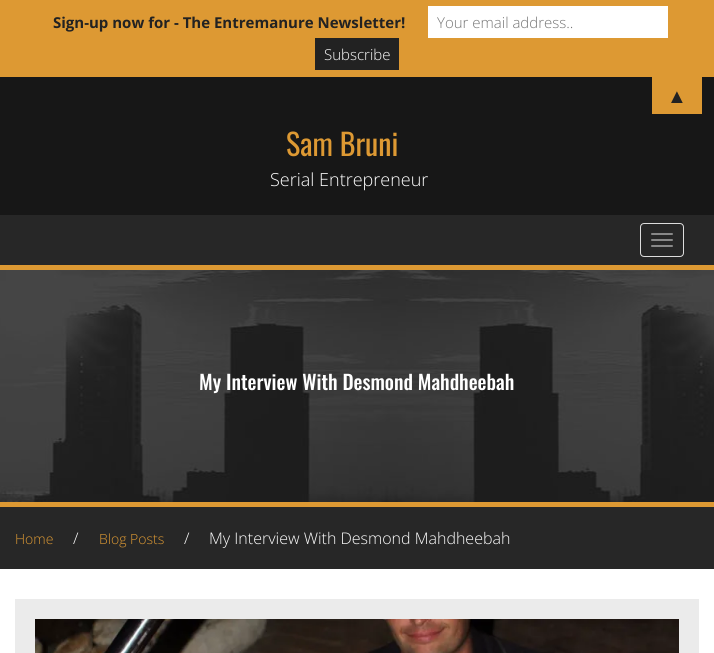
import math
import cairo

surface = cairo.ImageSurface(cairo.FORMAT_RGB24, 714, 653)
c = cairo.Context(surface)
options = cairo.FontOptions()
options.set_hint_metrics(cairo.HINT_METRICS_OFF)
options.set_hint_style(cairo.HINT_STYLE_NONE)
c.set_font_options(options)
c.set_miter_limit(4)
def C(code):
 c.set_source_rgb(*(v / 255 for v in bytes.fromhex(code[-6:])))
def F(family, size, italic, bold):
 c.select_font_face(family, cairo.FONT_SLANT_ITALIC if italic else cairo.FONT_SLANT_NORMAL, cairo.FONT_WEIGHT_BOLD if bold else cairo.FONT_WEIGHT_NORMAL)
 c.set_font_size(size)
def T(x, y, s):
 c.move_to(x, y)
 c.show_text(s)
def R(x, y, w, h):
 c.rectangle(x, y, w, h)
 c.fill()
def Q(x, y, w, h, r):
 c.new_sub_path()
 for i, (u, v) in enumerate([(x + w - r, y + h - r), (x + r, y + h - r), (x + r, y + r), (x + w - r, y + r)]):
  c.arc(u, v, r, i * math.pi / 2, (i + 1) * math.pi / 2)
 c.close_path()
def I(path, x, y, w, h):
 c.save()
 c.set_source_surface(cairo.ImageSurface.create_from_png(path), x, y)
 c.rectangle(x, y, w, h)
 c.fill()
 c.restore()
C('ffffff')
c.paint()
C('dd9933')
R(0,0,714,77)
F('Open Sans',15,0,1)
C('222222')
T(53,28,'Sign-up now for - The Entremanure Newsletter!')
C('ffffff')
R(428,6,240,32)
F('Open Sans Light',15,0,0)
C('757575')
T(437,28,'Your email address..')
C('222222')
R(315,38,84,32)
C('ffffff')
T(324,60,'Subscribe')
C('171717')
R(0,77,714,138)
C('dd9933')
R(652,77,50,37)
F('Liberation Sans',20,0,0)
C('222222')
T(667,103,'▲')
F('Oswald',30,0,0)
C('dd9933')
T(286,156,'Sam Bruni')
F('Open Sans Light',18,0,0)
C('ffffff')
T(270,186,'Serial Entrepreneur')
C('272727')
R(0,215,714,50)
C('dd9933')
R(0,265,714,5)
Q(640.5,223.5,43,33,3.5)
C('dddddd')
c.set_line_width(1)
c.stroke()
C('888888')
Q(651,233,22,2,1)
c.fill()
Q(651,239,22,2,1)
c.fill()
Q(651,245,22,2,1)
c.fill()
I('1.png',0,270,714,232)
C('dd9933')
R(0,502,714,5)
F('Oswald Medium',20,0,0)
C('ffffff')
T(199,390,'My Interview With Desmond Mahdheebah')
C('272727')
R(0,507,714,62)
F('Open Sans Light',14,0,0)
C('dd9933')
T(15,544,'Home')
F('Open Sans Light',16,0,0)
C('ffffff')
T(73,544,'/')
F('Open Sans Light',14,0,0)
C('dd9933')
T(99,544,'Blog Posts')
F('Open Sans Light',16,0,0)
C('ffffff')
T(184,544,'/')
T(209,544,'My Interview With Desmond Mahdheebah')
C('ebebeb')
R(15,599,684,54)
I('2.png',35,619,644,34)
surface.write_to_png('o.png')
